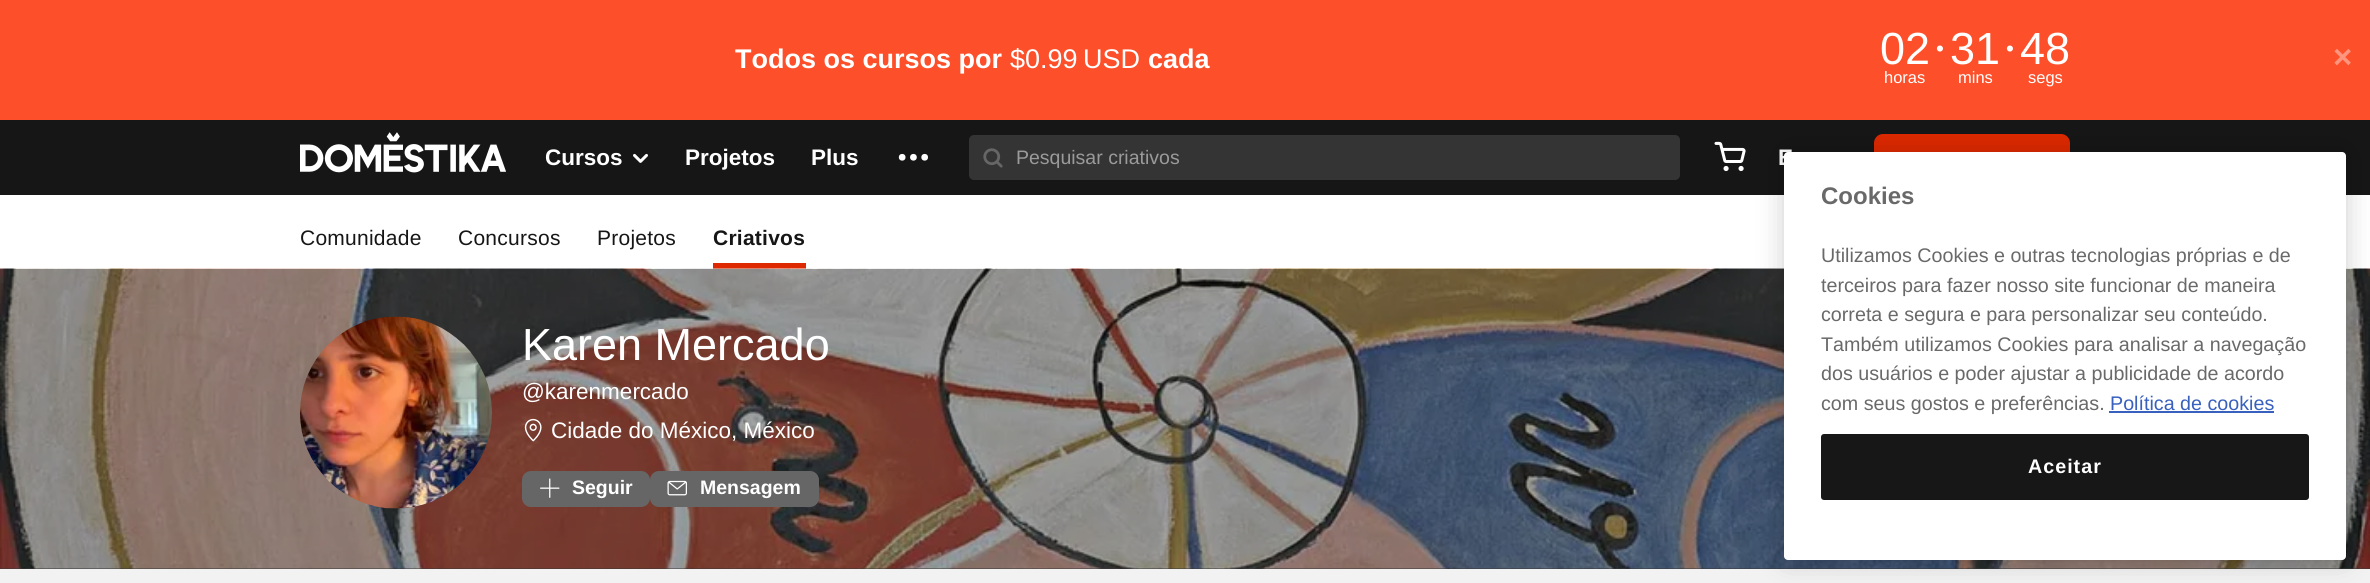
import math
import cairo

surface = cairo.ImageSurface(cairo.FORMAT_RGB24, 2370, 583)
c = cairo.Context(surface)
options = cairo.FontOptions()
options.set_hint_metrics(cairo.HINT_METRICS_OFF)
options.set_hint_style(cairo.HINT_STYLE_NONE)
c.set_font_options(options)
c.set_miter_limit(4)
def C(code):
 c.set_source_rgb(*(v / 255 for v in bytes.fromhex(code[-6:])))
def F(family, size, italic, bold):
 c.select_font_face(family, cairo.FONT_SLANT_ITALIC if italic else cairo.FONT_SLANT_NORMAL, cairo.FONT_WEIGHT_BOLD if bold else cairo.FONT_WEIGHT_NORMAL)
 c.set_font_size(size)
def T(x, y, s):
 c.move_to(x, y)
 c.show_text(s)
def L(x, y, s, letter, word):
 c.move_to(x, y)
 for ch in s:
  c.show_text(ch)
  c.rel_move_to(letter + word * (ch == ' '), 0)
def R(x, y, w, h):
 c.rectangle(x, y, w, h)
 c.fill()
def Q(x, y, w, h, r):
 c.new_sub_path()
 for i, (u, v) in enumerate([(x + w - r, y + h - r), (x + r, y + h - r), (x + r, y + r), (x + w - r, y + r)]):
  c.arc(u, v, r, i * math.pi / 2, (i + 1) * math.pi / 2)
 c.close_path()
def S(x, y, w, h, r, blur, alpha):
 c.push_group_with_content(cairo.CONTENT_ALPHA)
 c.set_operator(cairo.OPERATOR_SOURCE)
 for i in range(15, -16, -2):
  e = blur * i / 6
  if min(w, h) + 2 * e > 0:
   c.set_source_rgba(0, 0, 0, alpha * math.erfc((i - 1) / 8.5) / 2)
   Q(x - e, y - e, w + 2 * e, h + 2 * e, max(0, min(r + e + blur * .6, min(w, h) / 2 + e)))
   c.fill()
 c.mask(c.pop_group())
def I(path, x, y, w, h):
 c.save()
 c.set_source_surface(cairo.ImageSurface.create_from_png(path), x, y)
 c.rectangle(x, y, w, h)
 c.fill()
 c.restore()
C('f2f2f2')
c.paint()
C('fd502a')
R(0,0,2370,120)
F('Liberation Sans',27,0,1)
C('ffffff')
T(735,68,'Todos os cursos por')
F('Liberation Sans',27,0,0)
T(1010,68,'$0.99')
T(1083,68,'USD')
F('Liberation Sans',27,0,1)
T(1148,68,'cada')
F('Liberation Sans',45,0,0)
T(1880,64,'02')
F('Liberation Sans',16.5,0,0)
T(1884,83,'horas')
F('Liberation Sans',22.5,0,0)
T(1936,56,'•')
F('Liberation Sans',45,0,0)
T(1950,64,'31')
F('Liberation Sans',16.5,0,0)
T(1958,83,'mins')
F('Liberation Sans',22.5,0,0)
T(2006,56,'•')
F('Liberation Sans',45,0,0)
T(2020,64,'48')
F('Liberation Sans',16.5,0,0)
T(2028,83,'segs')
F('Liberation Sans',33,0,1)
C('fe967f')
T(2333,68,'×')
C('161616')
R(0,120,2370,75)
I('1.png',300,132,206,41)
F('Liberation Sans',22.5,0,1)
C('ffffff')
T(545,165,'Cursos')
I('2.png',633,153,15,10)
T(685,165,'Projetos')
T(811,165,'Plus')
I('3.png',898,153,30,8)
C('343434')
Q(969,135,711,45,5)
c.fill()
I('4.png',983,148,20,20)
F('Liberation Sans',19.5,0,0)
C('9a9a9a')
T(1016,164,'Pesquisar criativos')
I('5.png',1714,141,32,31)
F('Liberation Sans',22.5,0,1)
C('ffffff')
T(1778,165,'E')
C('de2900')
Q(1874,134,196,48,9)
c.fill()
C('ffffff')
R(0,195,2370,74)
F('Liberation Sans',21,0,0)
C('161616')
L(300,245,'Comunidade',.25,0)
L(458,245,'Concursos',.25,0)
L(597,245,'Projetos',.25,0)
C('de2900')
R(713,263,93,6)
F('Liberation Sans',21,0,1)
C('161616')
L(713,245,'Criativos',.25,0)
C('393939')
R(0,568,2370,1)
I('6.png',0,268,2370,301)
I('7.png',300,316,192,193)
F('Liberation Sans',45,0,0)
C('ffffff')
T(522,360,'Karen Mercado')
F('Liberation Sans',22.5,0,0)
T(522,399,'@karenmercado')
I('8.png',524,418,18,24)
T(551,438,'Cidade do México, México')
C('666666')
Q(522,471,128,36,9)
c.fill()
I('9.png',540,478,20,20)
F('Liberation Sans',19.5,0,1)
C('ffffff')
T(572,494,'Seguir')
C('666666')
Q(650,471,169,36,9)
c.fill()
I('10.png',667,480,20,16)
C('ffffff')
T(700,494,'Mensagem')
C('000000')
S(1784,152,562,408,4,13.5,.2)
C('ffffff')
Q(1784,152,562,408,4)
c.fill()
F('Liberation Sans',24,0,1)
C('696969')
T(1821,204,'Cookies')
F('Liberation Sans',19.7,0,0)
T(1821,262,'Utilizamos Cookies e outras tecnologias próprias e de')
T(1821,292,'terceiros para fazer nosso site funcionar de maneira')
T(1821,321,'correta e segura e para personalizar seu conteúdo.')
T(1821,351,'Também utilizamos Cookies para analisar a navegação')
T(1821,380,'dos usuários e poder ajustar a publicidade de acordo')
T(1821,410,'com seus gostos e preferências.')
C('3860be')
T(2110,410,'Política de cookies')
R(2109,411,165,2)
C('171717')
Q(1822,435,486,64,2)
c.fill_preserve()
c.stroke()
F('Liberation Sans',19.7,0,1)
C('ffffff')
L(2028,473,'Aceitar',1,0)
surface.write_to_png('o.png')
